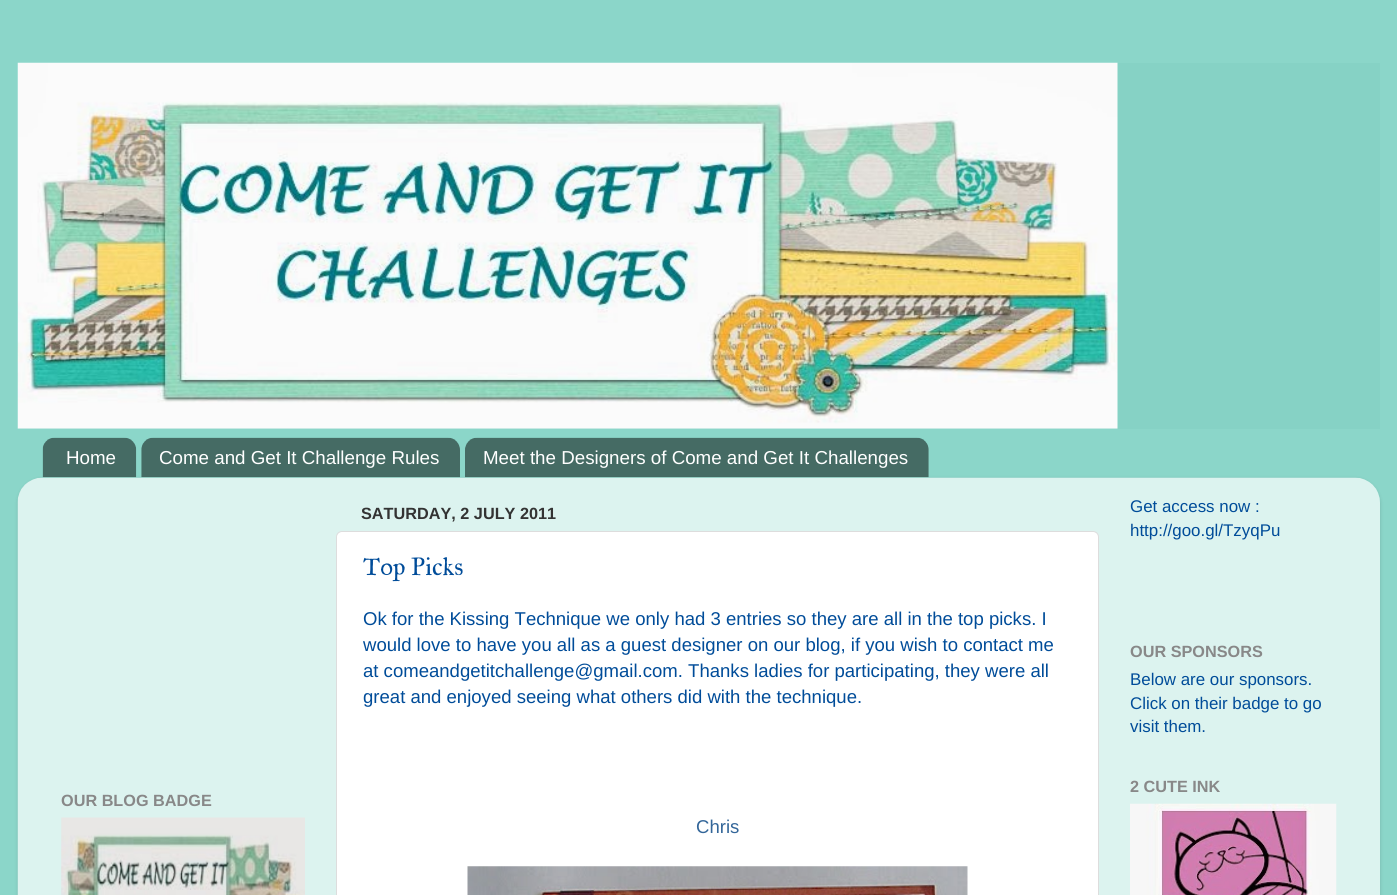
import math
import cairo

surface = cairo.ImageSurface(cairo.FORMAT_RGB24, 1397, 895)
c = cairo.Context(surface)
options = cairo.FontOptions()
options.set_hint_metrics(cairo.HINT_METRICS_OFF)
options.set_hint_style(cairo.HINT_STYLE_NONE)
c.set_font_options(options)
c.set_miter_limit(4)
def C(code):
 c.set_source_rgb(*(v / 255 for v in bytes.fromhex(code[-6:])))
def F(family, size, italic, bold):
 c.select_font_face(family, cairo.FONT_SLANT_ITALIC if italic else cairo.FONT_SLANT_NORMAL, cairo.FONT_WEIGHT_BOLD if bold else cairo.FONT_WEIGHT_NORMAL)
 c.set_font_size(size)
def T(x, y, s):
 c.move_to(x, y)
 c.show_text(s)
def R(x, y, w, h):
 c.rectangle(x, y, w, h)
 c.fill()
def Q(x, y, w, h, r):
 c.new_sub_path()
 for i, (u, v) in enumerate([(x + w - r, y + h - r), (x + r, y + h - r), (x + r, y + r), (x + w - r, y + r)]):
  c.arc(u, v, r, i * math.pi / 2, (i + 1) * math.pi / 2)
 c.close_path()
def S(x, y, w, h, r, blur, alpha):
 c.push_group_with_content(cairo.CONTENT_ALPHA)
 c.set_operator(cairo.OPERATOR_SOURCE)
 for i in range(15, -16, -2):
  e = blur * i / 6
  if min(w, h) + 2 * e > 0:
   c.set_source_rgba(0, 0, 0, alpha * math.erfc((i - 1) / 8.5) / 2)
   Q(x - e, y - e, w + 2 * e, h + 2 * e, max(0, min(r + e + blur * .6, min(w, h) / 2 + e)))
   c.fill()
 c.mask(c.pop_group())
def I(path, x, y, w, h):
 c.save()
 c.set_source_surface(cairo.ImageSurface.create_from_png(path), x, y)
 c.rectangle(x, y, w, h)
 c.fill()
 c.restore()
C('8bd6c9')
c.paint()
C('86d2c5')
R(18,63,1362,366)
I('1.png',17,62,1101,367)
I('2.png',42,437,95,41)
F('Liberation Sans',18.75,0,0)
C('ffffff')
T(66,464,'Home')
I('3.png',141,437,319,41)
T(159,464,'Come and Get It Challenge Rules')
I('4.png',465,437,464,41)
T(483,464,'Meet the Designers of Come and Get It Challenges')
c.save()
c.set_fill_rule(cairo.FILL_RULE_EVEN_ODD)
c.new_path()
c.move_to(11,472)
c.line_to(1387,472)
c.line_to(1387,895)
c.line_to(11,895)
c.close_path()
c.move_to(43,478)
c.line_to(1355,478)
c.curve_to(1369,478,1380,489,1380,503)
c.line_to(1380,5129)
c.line_to(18,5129)
c.line_to(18,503)
c.curve_to(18,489,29,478,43,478)
c.close_path()
c.clip()
C('000000')
S(18,479,1362,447,25,2,.15)
c.restore()
I('5.png',17,477,1363,418)
F('Liberation Sans',16.25,0,1)
C('888888')
T(61,806,'OUR BLOG BADGE')
I('6.png',61,817,244,78)
C('333333')
T(361,519,'SATURDAY, 2 JULY 2011')
C('ffffff')
Q(336.5,531.5,762,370,5.5)
c.fill_preserve()
C('dddddd')
c.set_line_width(1)
c.stroke()
F('IM FELL Great Primer',25,0,0)
C('004c99')
T(363,575,'Top Picks')
F('Liberation Sans',18.55,0,0)
T(363,625,'Ok for the Kissing Technique we only had 3 entries so they are all in the top picks. I')
T(363,651,'would love to have you all as a guest designer on our blog, if you wish to contact me')
T(363,677,'at comeandgetitchallenge@gmail.com. Thanks ladies for participating, they were all')
T(363,703,'great and enjoyed seeing what others did with the technique.')
C('336699')
T(696,833,'Chris')
I('7.png',467,866,501,29)
F('Liberation Sans',16.9,0,0)
C('004c99')
T(1130,512,'Get access now :')
T(1130,536,'http://goo.gl/TzyqPu')
F('Liberation Sans',16.25,0,1)
C('888888')
T(1130,657,'OUR SPONSORS')
F('Liberation Sans',16.9,0,0)
C('004c99')
T(1130,685,'Below are our sponsors.')
T(1130,709,'Click on their badge to go')
T(1130,732,'visit them.')
F('Liberation Sans',16.25,0,1)
C('888888')
T(1130,792,'2 CUTE INK')
I('8.png',1130,803,207,92)
surface.write_to_png('o.png')
